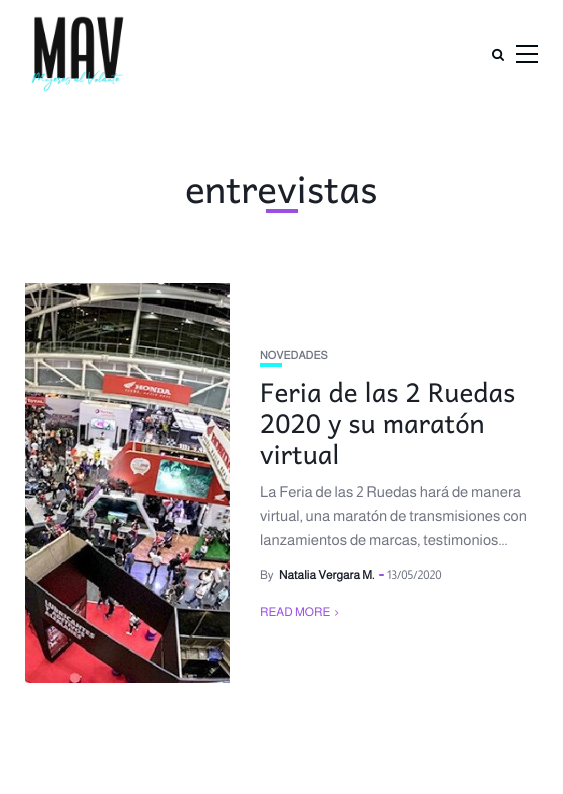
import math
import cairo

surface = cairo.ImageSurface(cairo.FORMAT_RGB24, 563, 794)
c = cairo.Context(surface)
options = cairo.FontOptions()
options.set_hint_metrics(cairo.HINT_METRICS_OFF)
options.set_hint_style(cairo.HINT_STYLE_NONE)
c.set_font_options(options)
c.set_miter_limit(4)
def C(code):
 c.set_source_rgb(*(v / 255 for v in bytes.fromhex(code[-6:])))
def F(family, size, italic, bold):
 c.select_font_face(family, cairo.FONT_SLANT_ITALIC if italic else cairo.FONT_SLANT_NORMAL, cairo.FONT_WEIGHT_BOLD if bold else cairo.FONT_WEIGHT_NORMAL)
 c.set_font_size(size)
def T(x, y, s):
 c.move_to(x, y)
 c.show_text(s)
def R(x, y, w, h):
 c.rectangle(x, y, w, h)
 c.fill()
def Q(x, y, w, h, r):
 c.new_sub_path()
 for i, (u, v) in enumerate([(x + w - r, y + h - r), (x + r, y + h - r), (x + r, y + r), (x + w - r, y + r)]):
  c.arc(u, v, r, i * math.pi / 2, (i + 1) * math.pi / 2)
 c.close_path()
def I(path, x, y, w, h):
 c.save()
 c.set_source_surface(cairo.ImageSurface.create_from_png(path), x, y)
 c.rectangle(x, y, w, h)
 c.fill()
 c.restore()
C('ffffff')
c.paint()
I('1.png',31,16,93,76)
I('2.png',492,48,12,13)
C('030b12')
R(516,45,22,2)
R(516,53,22,2)
R(516,61,22,2)
F('Andika',37,0,0)
C('1a1f28')
T(185,203,'entrevistas')
C('9850e0')
R(266,209,32,4)
I('3.png',25,283,205,400)
F('Almarai',11,0,1)
C('717582')
T(260,359,'NOVEDADES')
C('1bf8fb')
R(260,363,22,4)
F('Andika',26,0,0)
C('1a1f28')
T(260,402,'Feria de las 2 Ruedas')
T(260,433,'2020 y su maratón')
T(260,464,'virtual')
F('Almarai',15,0,0)
C('717582')
T(260,497,'La Feria de las 2 Ruedas hará de manera')
T(260,521,'virtual, una maratón de transmisiones con')
T(260,545,'lanzamientos de marcas, testimonios...')
F('Almarai',12,0,0)
T(260,579,'By')
F('Almarai',12,0,1)
C('1a1f28')
T(279,579,'Natalia Vergara M.')
C('9850e0')
Q(379,574,5,2,1)
c.fill()
F('Almarai',12,0,0)
C('717582')
T(387,579,'13/05/2020')
C('9850e0')
T(260,616,'READ MORE')
I('4.png',335,610,4,6)
surface.write_to_png('o.png')
